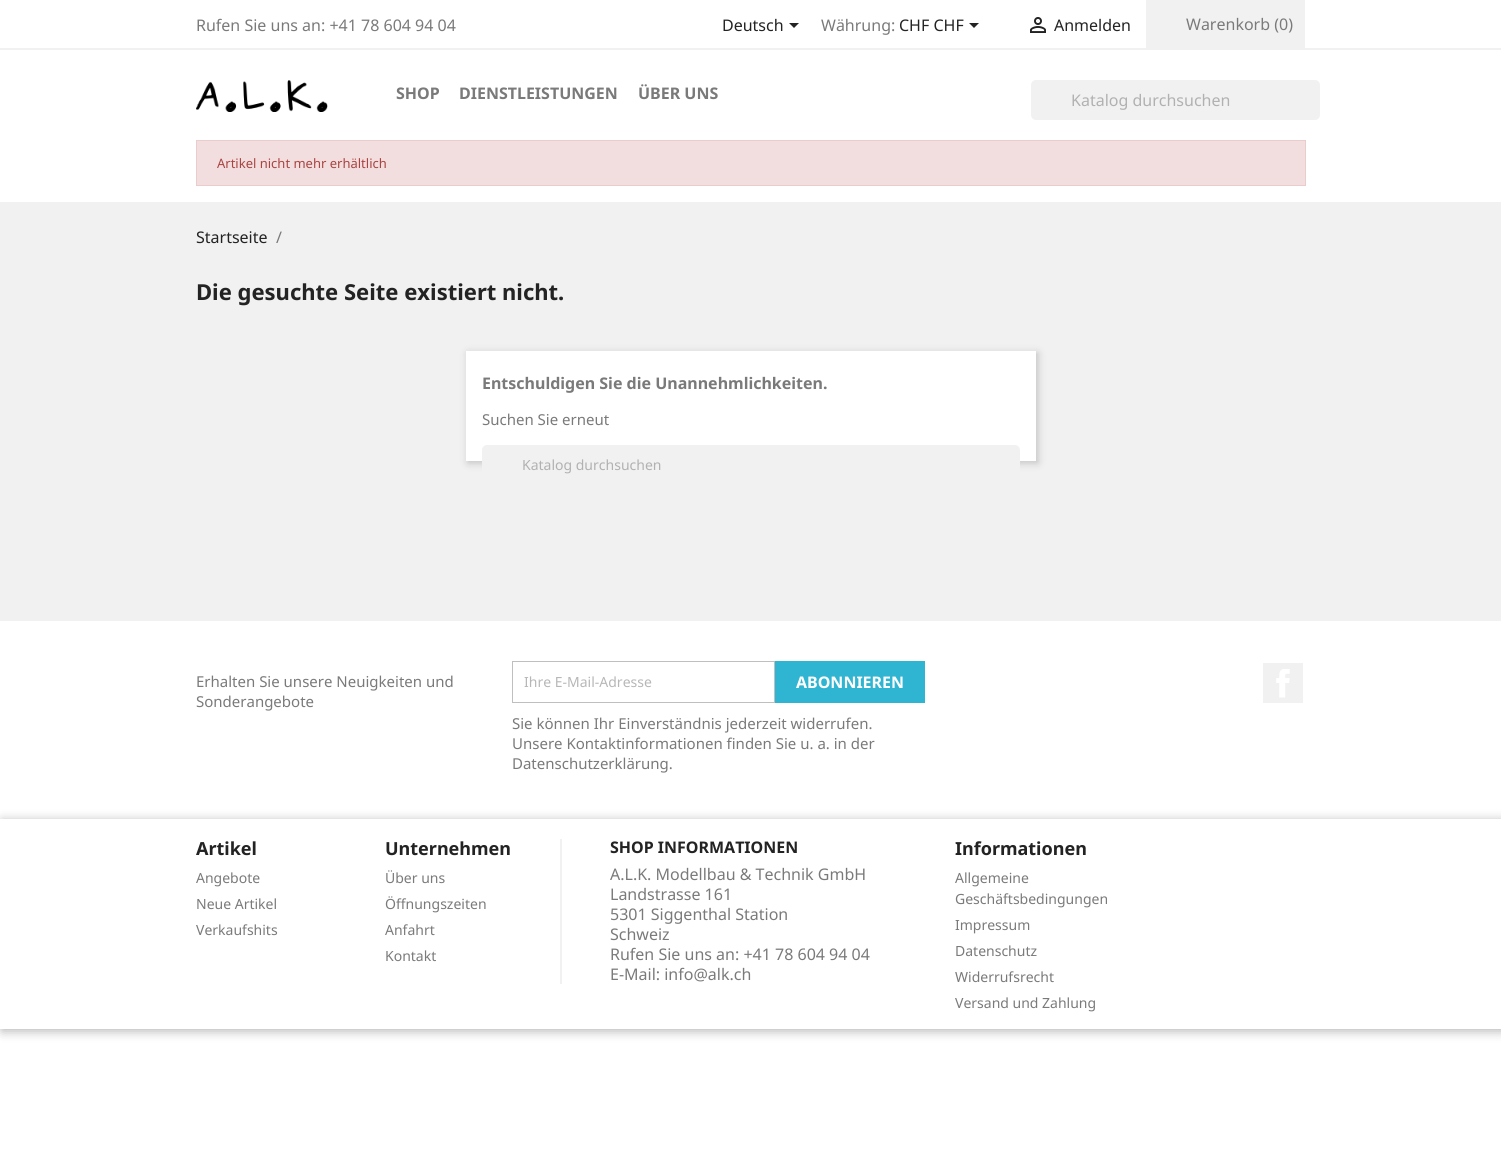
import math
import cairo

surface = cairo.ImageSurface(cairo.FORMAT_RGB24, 1501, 1170)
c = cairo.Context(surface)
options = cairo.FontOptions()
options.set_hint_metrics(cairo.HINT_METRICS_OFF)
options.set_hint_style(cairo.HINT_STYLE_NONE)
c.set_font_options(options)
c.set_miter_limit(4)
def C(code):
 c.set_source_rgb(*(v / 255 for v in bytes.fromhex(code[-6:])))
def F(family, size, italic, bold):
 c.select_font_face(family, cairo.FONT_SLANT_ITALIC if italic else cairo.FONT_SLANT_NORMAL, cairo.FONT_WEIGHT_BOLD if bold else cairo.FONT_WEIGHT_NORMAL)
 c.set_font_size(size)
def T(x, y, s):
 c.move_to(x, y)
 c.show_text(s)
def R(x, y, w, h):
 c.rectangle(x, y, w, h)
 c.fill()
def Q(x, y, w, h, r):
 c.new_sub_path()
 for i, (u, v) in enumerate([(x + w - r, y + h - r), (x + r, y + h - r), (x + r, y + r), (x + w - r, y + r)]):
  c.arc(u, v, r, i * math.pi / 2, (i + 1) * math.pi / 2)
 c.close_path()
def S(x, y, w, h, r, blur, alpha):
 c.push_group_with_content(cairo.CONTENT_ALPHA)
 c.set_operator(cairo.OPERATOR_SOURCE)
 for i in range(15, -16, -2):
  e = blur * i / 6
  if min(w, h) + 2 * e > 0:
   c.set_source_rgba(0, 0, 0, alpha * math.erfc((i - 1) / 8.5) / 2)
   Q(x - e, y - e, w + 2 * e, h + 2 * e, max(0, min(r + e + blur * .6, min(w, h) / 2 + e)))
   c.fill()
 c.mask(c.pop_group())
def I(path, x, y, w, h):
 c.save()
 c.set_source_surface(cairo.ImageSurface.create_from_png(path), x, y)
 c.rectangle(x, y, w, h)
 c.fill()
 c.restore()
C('ffffff')
c.paint()
C('f1f1f1')
R(0,48,1501,2)
F('Noto Sans',16,0,0)
C('7a7a7a')
T(196,31,'Rufen Sie uns an: +41 78 604 94 04')
C('232323')
T(722,31,'Deutsch')
c.new_path()
c.move_to(789,23)
c.line_to(799,23)
c.line_to(794,28)
c.close_path()
c.fill()
C('7a7a7a')
T(821,31,'Währung:')
C('232323')
T(899,31,'CHF CHF')
c.new_path()
c.move_to(969,23)
c.line_to(979,23)
c.line_to(974,28)
c.close_path()
c.fill()
I('1.png',1030,17,16,16)
T(1054,31,'Anmelden')
C('f1f1f1')
R(1146,0,159,48)
C('7a7a7a')
T(1186,30,'Warenkorb (0)')
I('2.png',196,80,132,32)
F('Noto Sans',16,0,1)
T(396,99,'SHOP')
T(459,99,'DIENSTLEISTUNGEN')
T(638,99,'ÜBER UNS')
C('f1f1f1')
Q(1031,80,289,40,5)
c.fill()
F('Noto Sans',16,0,0)
C('b1b1b1')
T(1071,106,'Katalog durchsuchen')
C('f2dede')
c.rectangle(196.5,140.5,1109,45)
c.fill_preserve()
C('ebcccc')
c.set_line_width(1)
c.stroke()
F('Noto Sans',13,0,0)
C('a94442')
T(217,168,'Artikel nicht mehr erhältlich')
C('f1f1f1')
R(0,202,1501,419)
F('Noto Sans',16,0,0)
C('232323')
T(196,243,'Startseite')
C('7a7a7a')
T(276,243,'/')
F('Noto Sans',22,0,1)
C('232323')
T(196,300,'Die gesuchte Seite existiert nicht.')
C('000000')
S(468,353,570,110,0,4,.2)
C('ffffff')
R(466,351,570,110)
F('Noto Sans',16,0,1)
C('7a7a7a')
T(482,389,'Entschuldigen Sie die Unannehmlichkeiten.')
F('Noto Sans',15,0,0)
T(482,425,'Suchen Sie erneut')
C('f1f1f1')
Q(482,445,538,40,5)
c.fill()
F('Noto Sans',14,0,0)
C('b1b1b1')
T(522,470,'Katalog durchsuchen')
F('Noto Sans',15,0,0)
C('7a7a7a')
T(196,687,'Erhalten Sie unsere Neuigkeiten und')
T(196,707,'Sonderangebote')
c.rectangle(512.5,661.5,262,41)
C('bfbfbf')
c.stroke()
F('Noto Sans',14,0,0)
C('b7b7b7')
T(524,687,'Ihre E-Mail-Adresse')
C('2fb5d2')
R(775,661,150,42)
F('Noto Sans',16,0,1)
C('ffffff')
T(796,688,'ABONNIEREN')
F('Noto Sans',15,0,0)
C('7a7a7a')
T(512,729,'Sie können Ihr Einverständnis jederzeit widerrufen.')
T(512,749,'Unsere Kontaktinformationen finden Sie u. a. in der')
T(512,769,'Datenschutzerklärung.')
C('f1f1f1')
R(1263,663,40,40)
I('3.png',1276,669,14,29)
c.save()
c.set_fill_rule(cairo.FILL_RULE_EVEN_ODD)
c.new_path()
c.move_to(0,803)
c.line_to(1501,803)
c.line_to(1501,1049)
c.line_to(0,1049)
c.close_path()
c.move_to(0,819)
c.line_to(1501,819)
c.line_to(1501,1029)
c.line_to(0,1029)
c.close_path()
c.clip()
C('000000')
S(2,821,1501,210,0,5.5,.3)
c.restore()
F('Noto Sans',18,0,1)
C('232323')
T(196,855,'Artikel')
F('Noto Sans',14,0,0)
C('7a7a7a')
T(196,883,'Angebote')
T(196,909,'Neue Artikel')
T(196,935,'Verkaufshits')
F('Noto Sans',18,0,1)
C('232323')
T(385,855,'Unternehmen')
F('Noto Sans',14,0,0)
C('7a7a7a')
T(385,883,'Über uns')
T(385,909,'Öffnungszeiten')
T(385,935,'Anfahrt')
T(385,961,'Kontakt')
C('f1f1f1')
R(560,839,2,145)
F('Noto Sans',16,0,1)
C('232323')
T(610,853,'SHOP INFORMATIONEN')
F('Noto Sans',16,0,0)
C('7a7a7a')
T(610,880,'A.L.K. Modellbau & Technik GmbH')
T(610,900,'Landstrasse 161')
T(610,920,'5301 Siggenthal Station')
T(610,940,'Schweiz')
T(610,960,'Rufen Sie uns an: +41 78 604 94 04')
T(610,980,'E-Mail: info@alk.ch')
F('Noto Sans',18,0,1)
C('232323')
T(955,855,'Informationen')
F('Noto Sans',14,0,0)
C('7a7a7a')
T(955,883,'Allgemeine')
T(955,904,'Geschäftsbedingungen')
T(955,930,'Impressum')
T(955,956,'Datenschutz')
T(955,982,'Widerrufsrecht')
T(955,1008,'Versand und Zahlung')
surface.write_to_png('o.png')
